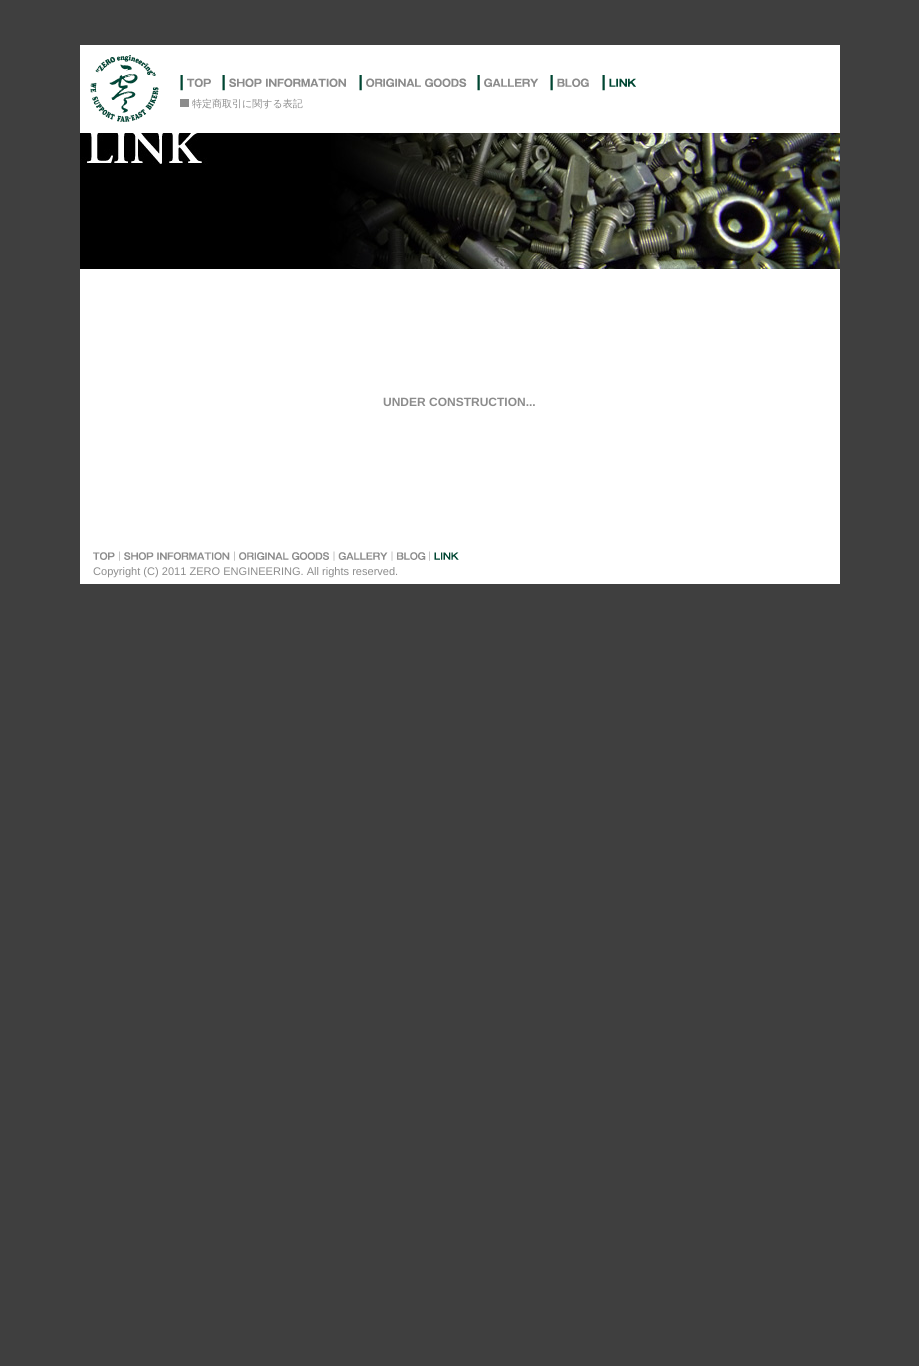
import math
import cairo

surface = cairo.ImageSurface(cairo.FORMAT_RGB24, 919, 1366)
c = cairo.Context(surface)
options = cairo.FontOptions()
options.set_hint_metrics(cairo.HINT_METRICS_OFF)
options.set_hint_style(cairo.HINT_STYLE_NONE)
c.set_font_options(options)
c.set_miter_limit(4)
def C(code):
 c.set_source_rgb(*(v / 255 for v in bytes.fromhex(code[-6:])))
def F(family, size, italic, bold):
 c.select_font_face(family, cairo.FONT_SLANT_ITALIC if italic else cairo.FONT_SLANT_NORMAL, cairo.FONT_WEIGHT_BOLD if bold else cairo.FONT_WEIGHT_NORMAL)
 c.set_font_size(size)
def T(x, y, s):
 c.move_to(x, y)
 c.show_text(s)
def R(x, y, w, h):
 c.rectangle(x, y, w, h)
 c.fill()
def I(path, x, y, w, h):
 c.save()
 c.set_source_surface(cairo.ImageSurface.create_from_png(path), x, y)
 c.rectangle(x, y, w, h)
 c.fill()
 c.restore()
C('3f3f3f')
c.paint()
C('ffffff')
R(80,45,760,539)
I('1.png',90,55,69,67)
I('2.png',180,75,31,16)
I('3.png',222,75,124,16)
I('4.png',359,75,108,16)
I('5.png',477,75,62,16)
I('6.png',550,75,39,16)
I('7.png',602,75,34,16)
C('8c8c8c')
R(180,99,9,8)
F('WenQuanYi Zen Hei Medium',10,0,0)
T(192,107,'特定商取引に関する表記')
I('8.png',80,133,760,136)
F('Liberation Sans',12,0,1)
T(383,406,'UNDER CONSTRUCTION...')
I('9.png',93,552,22,8)
I('10.png',119,551,111,10)
I('11.png',234,551,95,10)
I('12.png',333,551,55,10)
I('13.png',391,551,35,10)
I('14.png',429,551,30,10)
F('Liberation Sans',11.05,0,0)
T(93,575,'Copyright (C) 2011 ZERO ENGINEERING. All rights reserved.')
surface.write_to_png('o.png')
